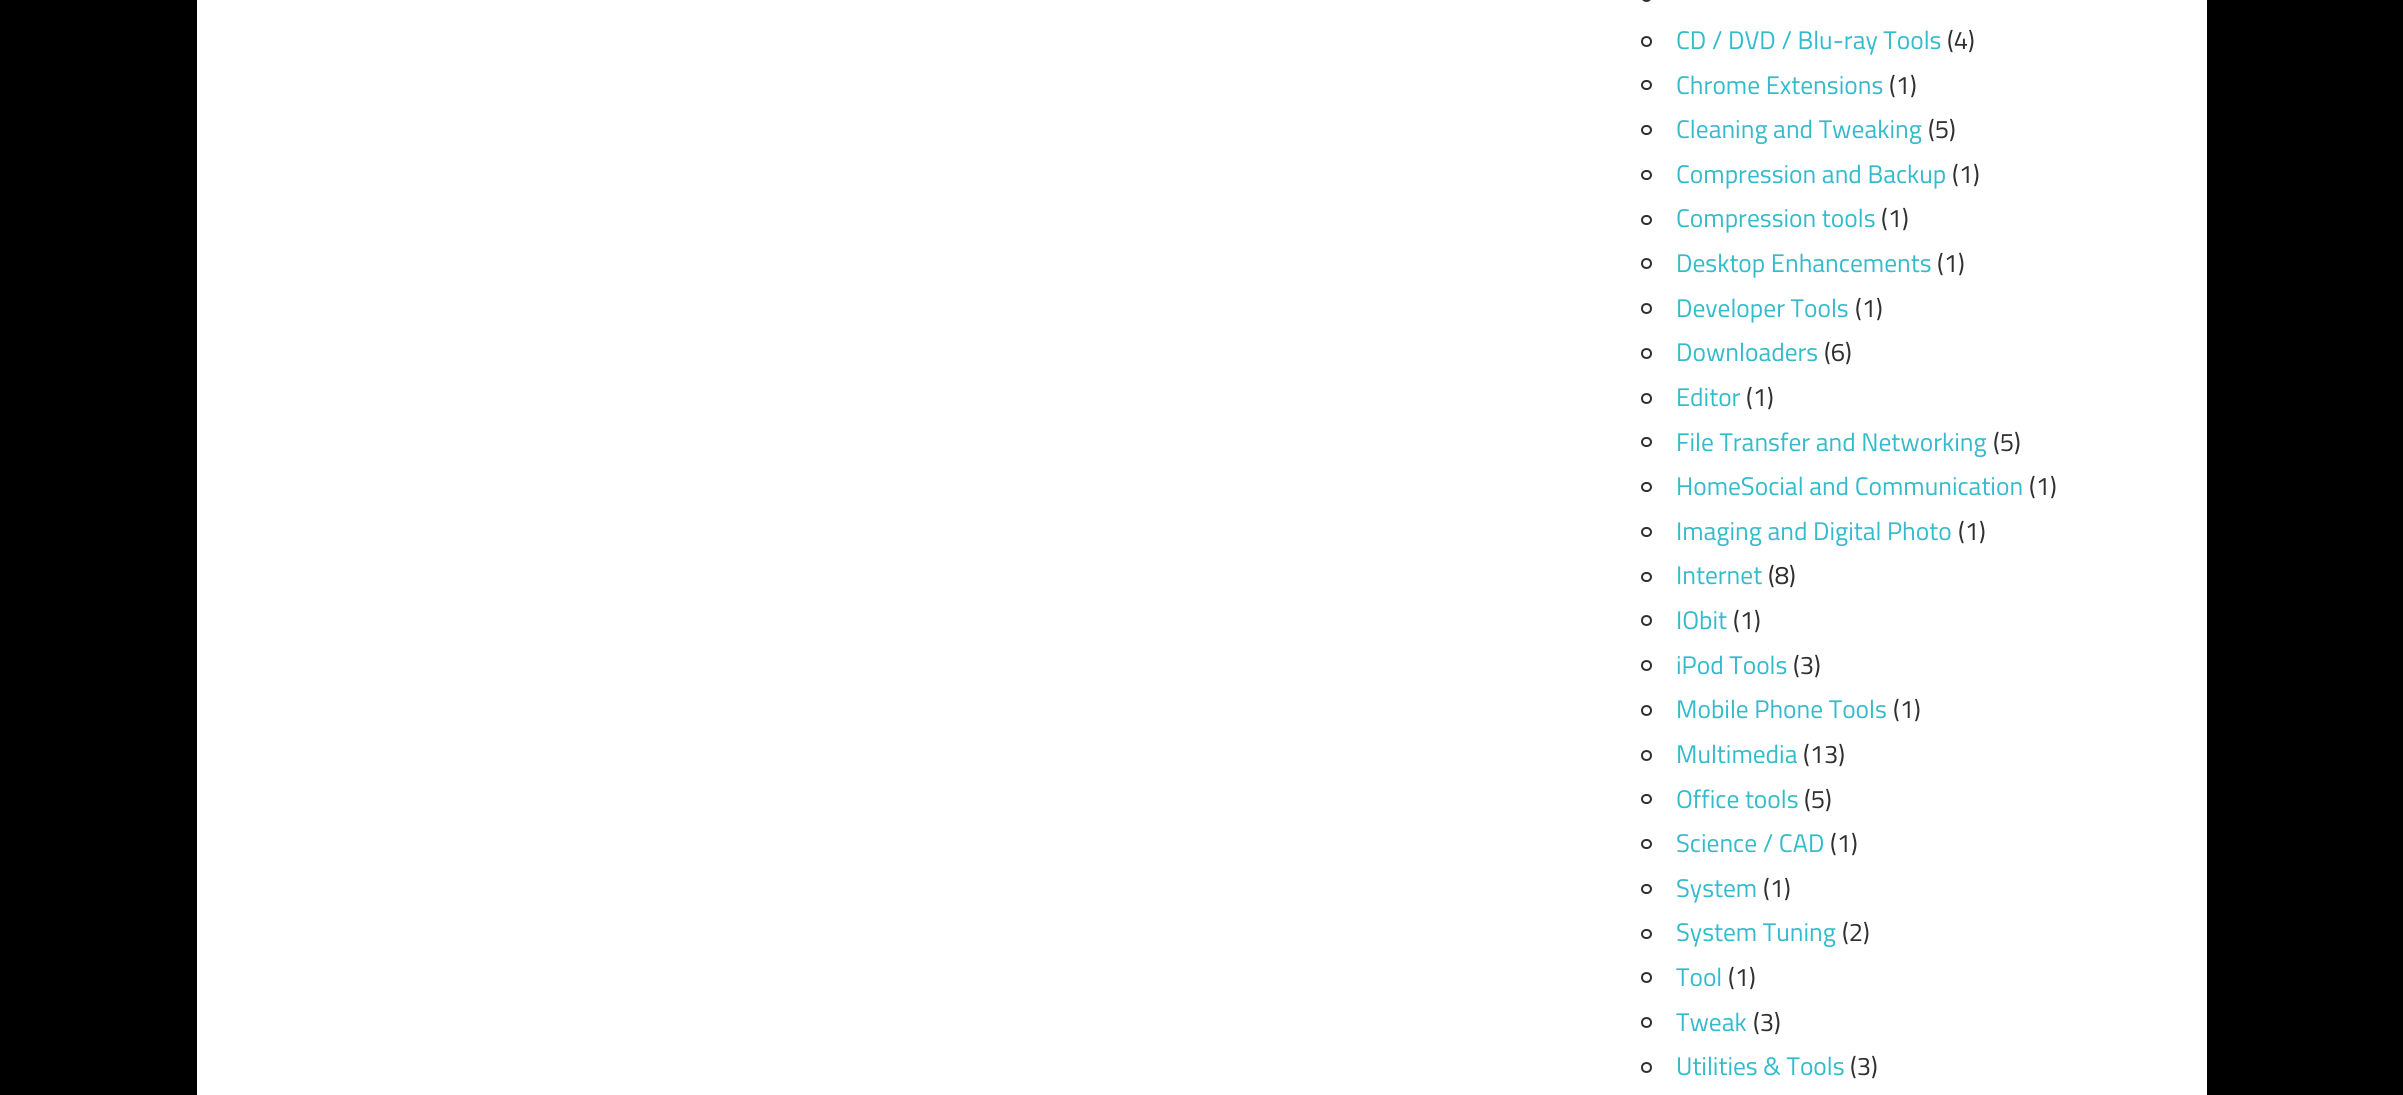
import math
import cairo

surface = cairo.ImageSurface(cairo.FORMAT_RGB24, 2403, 1095)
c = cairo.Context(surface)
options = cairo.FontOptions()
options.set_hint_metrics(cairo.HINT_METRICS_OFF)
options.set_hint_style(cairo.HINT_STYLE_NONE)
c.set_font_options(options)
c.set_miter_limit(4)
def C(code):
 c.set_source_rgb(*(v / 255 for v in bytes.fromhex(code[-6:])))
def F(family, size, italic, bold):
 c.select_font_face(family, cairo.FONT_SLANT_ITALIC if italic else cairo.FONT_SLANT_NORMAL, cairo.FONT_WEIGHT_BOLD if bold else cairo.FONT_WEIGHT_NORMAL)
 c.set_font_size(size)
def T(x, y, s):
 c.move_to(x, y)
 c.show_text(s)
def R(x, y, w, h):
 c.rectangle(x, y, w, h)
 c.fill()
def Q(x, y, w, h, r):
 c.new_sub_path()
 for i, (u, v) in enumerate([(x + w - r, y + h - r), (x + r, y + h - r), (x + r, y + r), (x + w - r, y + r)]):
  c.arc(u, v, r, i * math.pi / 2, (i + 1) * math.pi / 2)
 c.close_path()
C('000000')
c.paint()
C('ffffff')
R(197,0,2010,1095)
Q(1642,-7,9,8,4.5)
C('303030')
c.stroke()
c.arc(1646.5,41.5,4.5,0,2 * math.pi)
c.stroke()
F('Titillium Web',25.5,0,0)
C('33bbcc')
T(1676,49,'CD / DVD / Blu-ray Tools')
C('303030')
T(1947,49,'(4)')
Q(1642,81,9,8,4)
c.stroke()
C('33bbcc')
T(1676,94,'Chrome Extensions')
C('303030')
T(1889,94,'(1)')
Q(1642,126,9,8,4)
c.stroke()
C('33bbcc')
T(1676,138,'Cleaning and Tweaking')
C('303030')
T(1928,138,'(5)')
Q(1642,171,9,8,4)
c.stroke()
C('33bbcc')
T(1676,183,'Compression and Backup')
C('303030')
T(1952,183,'(1)')
Q(1642,216,9,8,4)
c.stroke()
C('33bbcc')
T(1676,227,'Compression tools')
C('303030')
T(1881,227,'(1)')
c.new_path()
c.arc(1646.5,263.5,4.5,0,2 * math.pi)
c.stroke()
C('33bbcc')
T(1676,272,'Desktop Enhancements')
C('303030')
T(1937,272,'(1)')
c.new_path()
c.arc(1646.5,308.5,4.5,0,2 * math.pi)
c.stroke()
C('33bbcc')
T(1676,317,'Developer Tools')
C('303030')
T(1855,317,'(1)')
c.new_path()
c.arc(1646.5,353.5,4.5,0,2 * math.pi)
c.stroke()
C('33bbcc')
T(1676,361,'Downloaders')
C('303030')
T(1824,361,'(6)')
c.new_path()
c.arc(1646.5,398.5,4.5,0,2 * math.pi)
c.stroke()
C('33bbcc')
T(1676,406,'Editor')
C('303030')
T(1746,406,'(1)')
Q(1642,438,9,8,4)
c.stroke()
C('33bbcc')
T(1676,451,'File Transfer and Networking')
C('303030')
T(1993,451,'(5)')
Q(1642,483,9,8,4)
c.stroke()
C('33bbcc')
T(1676,495,'HomeSocial and Communication')
C('303030')
T(2029,495,'(1)')
Q(1642,528,9,8,4)
c.stroke()
C('33bbcc')
T(1676,540,'Imaging and Digital Photo')
C('303030')
T(1958,540,'(1)')
Q(1642,573,9,8,4)
c.stroke()
C('33bbcc')
T(1676,584,'Internet')
C('303030')
T(1768,584,'(8)')
c.new_path()
c.arc(1646.5,620.5,4.5,0,2 * math.pi)
c.stroke()
C('33bbcc')
T(1676,629,'IObit')
C('303030')
T(1733,629,'(1)')
c.new_path()
c.arc(1646.5,665.5,4.5,0,2 * math.pi)
c.stroke()
C('33bbcc')
T(1676,674,'iPod Tools')
C('303030')
T(1793,674,'(3)')
c.new_path()
c.arc(1646.5,710.5,4.5,0,2 * math.pi)
c.stroke()
C('33bbcc')
T(1676,718,'Mobile Phone Tools')
C('303030')
T(1893,718,'(1)')
c.new_path()
c.arc(1646.5,755.5,4.5,0,2 * math.pi)
c.stroke()
C('33bbcc')
T(1676,763,'Multimedia')
C('303030')
T(1803,763,'(13)')
Q(1642,795,9,8,4)
c.stroke()
C('33bbcc')
T(1676,808,'Office tools')
C('303030')
T(1804,808,'(5)')
Q(1642,840,9,8,4)
c.stroke()
C('33bbcc')
T(1676,852,'Science / CAD')
C('303030')
T(1830,852,'(1)')
Q(1642,885,9,8,4)
c.stroke()
C('33bbcc')
T(1676,897,'System')
C('303030')
T(1763,897,'(1)')
Q(1642,930,9,8,4)
c.stroke()
C('33bbcc')
T(1676,941,'System Tuning')
C('303030')
T(1842,941,'(2)')
c.new_path()
c.arc(1646.5,977.5,4.5,0,2 * math.pi)
c.stroke()
C('33bbcc')
T(1676,986,'Tool')
C('303030')
T(1728,986,'(1)')
c.new_path()
c.arc(1646.5,1022.5,4.5,0,2 * math.pi)
c.stroke()
C('33bbcc')
T(1676,1031,'Tweak')
C('303030')
T(1753,1031,'(3)')
c.new_path()
c.arc(1646.5,1067.5,4.5,0,2 * math.pi)
c.stroke()
C('33bbcc')
T(1676,1075,'Utilities & Tools')
C('303030')
T(1850,1075,'(3)')
surface.write_to_png('o.png')
